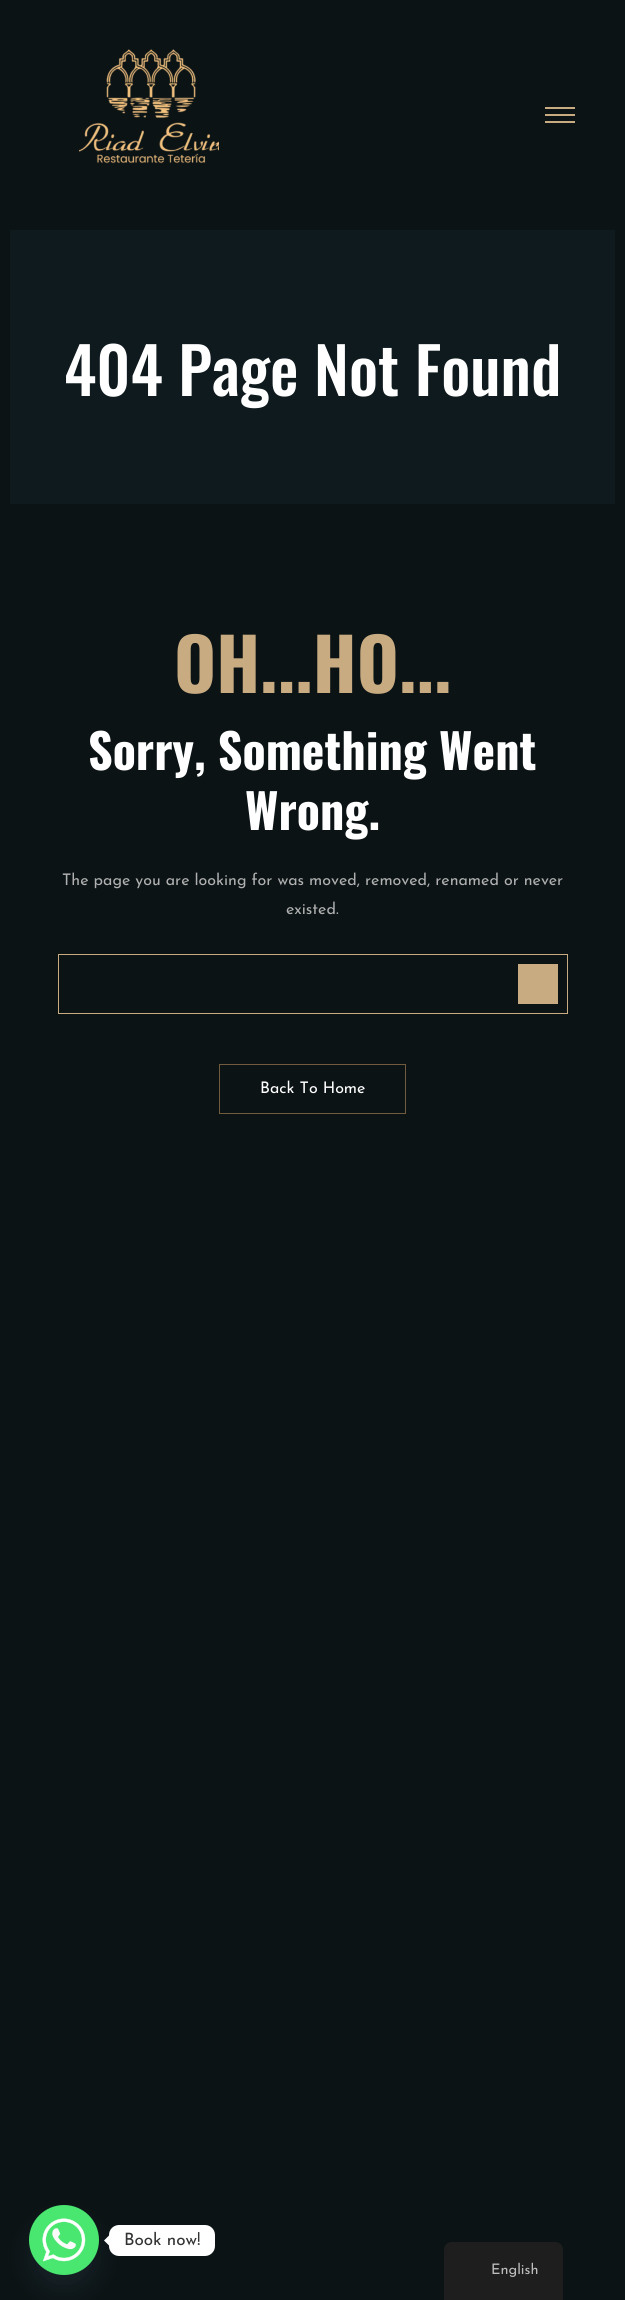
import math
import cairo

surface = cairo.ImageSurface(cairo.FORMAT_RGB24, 625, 2300)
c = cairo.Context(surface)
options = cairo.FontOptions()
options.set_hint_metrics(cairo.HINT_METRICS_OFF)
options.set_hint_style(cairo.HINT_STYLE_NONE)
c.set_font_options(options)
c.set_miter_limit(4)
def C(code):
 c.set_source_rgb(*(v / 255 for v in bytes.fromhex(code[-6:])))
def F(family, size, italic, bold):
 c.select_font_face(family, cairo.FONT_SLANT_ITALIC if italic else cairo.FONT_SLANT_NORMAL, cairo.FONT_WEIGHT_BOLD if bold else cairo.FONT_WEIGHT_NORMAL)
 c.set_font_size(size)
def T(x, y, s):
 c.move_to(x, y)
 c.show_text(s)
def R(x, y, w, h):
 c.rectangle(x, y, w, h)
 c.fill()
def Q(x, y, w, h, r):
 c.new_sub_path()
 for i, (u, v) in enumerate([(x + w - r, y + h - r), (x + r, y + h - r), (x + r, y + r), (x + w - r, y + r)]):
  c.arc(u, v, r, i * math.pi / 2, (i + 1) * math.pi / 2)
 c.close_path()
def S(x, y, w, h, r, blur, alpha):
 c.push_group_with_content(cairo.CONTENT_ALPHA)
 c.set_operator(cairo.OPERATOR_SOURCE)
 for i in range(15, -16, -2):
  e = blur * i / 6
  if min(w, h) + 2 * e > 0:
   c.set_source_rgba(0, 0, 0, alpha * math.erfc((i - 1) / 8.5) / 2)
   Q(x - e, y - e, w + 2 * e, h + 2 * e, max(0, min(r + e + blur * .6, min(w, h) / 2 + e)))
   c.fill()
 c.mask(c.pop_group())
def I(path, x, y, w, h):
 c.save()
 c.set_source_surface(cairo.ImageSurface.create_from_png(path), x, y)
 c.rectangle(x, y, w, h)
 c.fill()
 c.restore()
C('0b1315')
c.paint()
I('1.png',79,49,140,115)
C('c9ab81')
R(545,107,30,2)
R(545,114,30,2)
R(545,121,30,2)
C('0e1a1e')
R(10,230,605,274)
F('Oswald Medium',64,0,0)
C('ffffff')
T(64,396,'404 Page Not Found')
F('Oswald',72,0,1)
C('c9ab81')
T(174,693,'OH...HO...')
F('Oswald',48,0,1)
C('ffffff')
T(88,770,'Sorry, Something Went')
T(245,830,'Wrong.')
F('Josefin Sans',16,0,0)
C('b0b0b0')
T(62,885,'The page you are looking for was moved, removed, renamed or never')
T(286,914,'existed.')
c.rectangle(58.5,954.5,509,59)
C('c9ab81')
c.set_line_width(1)
c.stroke()
R(518,964,40,40)
c.rectangle(219.5,1064.5,186,49)
C('715b3e')
c.stroke()
C('ffffff')
T(260,1093,'Back To Home')
C('49687e')
S(29,2221,70,70,35,12,.16)
I('2.png',29,2205,70,70)
C('ffffff')
Q(109,2225,106,31,10)
c.fill()
c.new_path()
c.move_to(109,2235.5)
c.line_to(109,2245.5)
c.line_to(104,2240.5)
c.close_path()
c.fill()
F('Josefin Sans',17,0,0)
C('333333')
T(124,2245,'Book now!')
C('1e1e1e')
c.new_path()
c.move_to(452,2242)
c.line_to(555,2242)
c.curve_to(559.5,2242,563,2245.5,563,2250)
c.line_to(563,2300)
c.line_to(444,2300)
c.line_to(444,2250)
c.curve_to(444,2245.5,447.5,2242,452,2242)
c.close_path()
c.fill()
F('Josefin Sans',14.5,0,0)
C('bdbdbd')
T(491,2274,'English')
surface.write_to_png('o.png')
